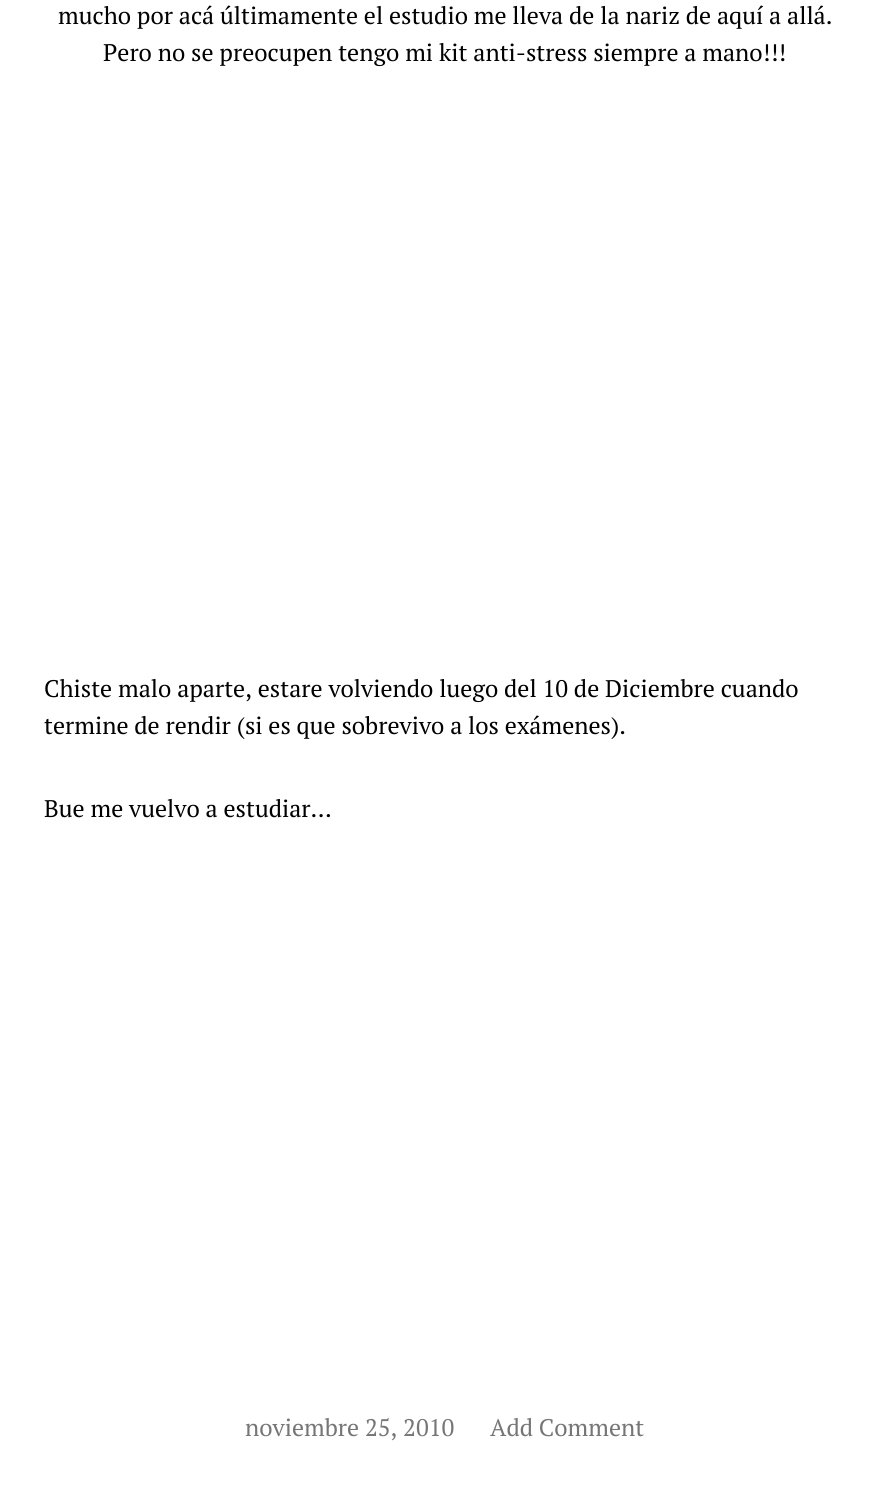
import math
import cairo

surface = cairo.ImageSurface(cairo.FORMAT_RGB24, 889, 1490)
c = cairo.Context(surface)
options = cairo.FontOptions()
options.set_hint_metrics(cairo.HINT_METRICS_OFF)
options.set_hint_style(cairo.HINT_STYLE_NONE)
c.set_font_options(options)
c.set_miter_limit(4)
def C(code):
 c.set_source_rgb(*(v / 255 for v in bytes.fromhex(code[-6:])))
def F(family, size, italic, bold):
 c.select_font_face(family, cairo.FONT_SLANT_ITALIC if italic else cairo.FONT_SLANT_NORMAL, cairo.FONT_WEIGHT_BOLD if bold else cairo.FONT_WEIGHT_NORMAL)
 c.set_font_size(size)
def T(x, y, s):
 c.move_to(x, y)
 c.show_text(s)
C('ffffff')
c.paint()
F('PT Serif',24,0,0)
C('000000')
T(58,24,'mucho por acá últimamente el estudio me lleva de la nariz de aquí a allá.')
T(103,61,'Pero no se preocupen tengo mi kit anti-stress siempre a mano!!!')
T(44,697,'Chiste malo aparte, estare volviendo luego del 10 de Diciembre cuando')
T(44,734,'termine de rendir (si es que sobrevivo a los exámenes).')
T(44,817,'Bue me vuelvo a estudiar…')
C('767676')
T(245,1436,'noviembre 25, 2010')
T(490,1436,'Add Comment')
surface.write_to_png('o.png')
